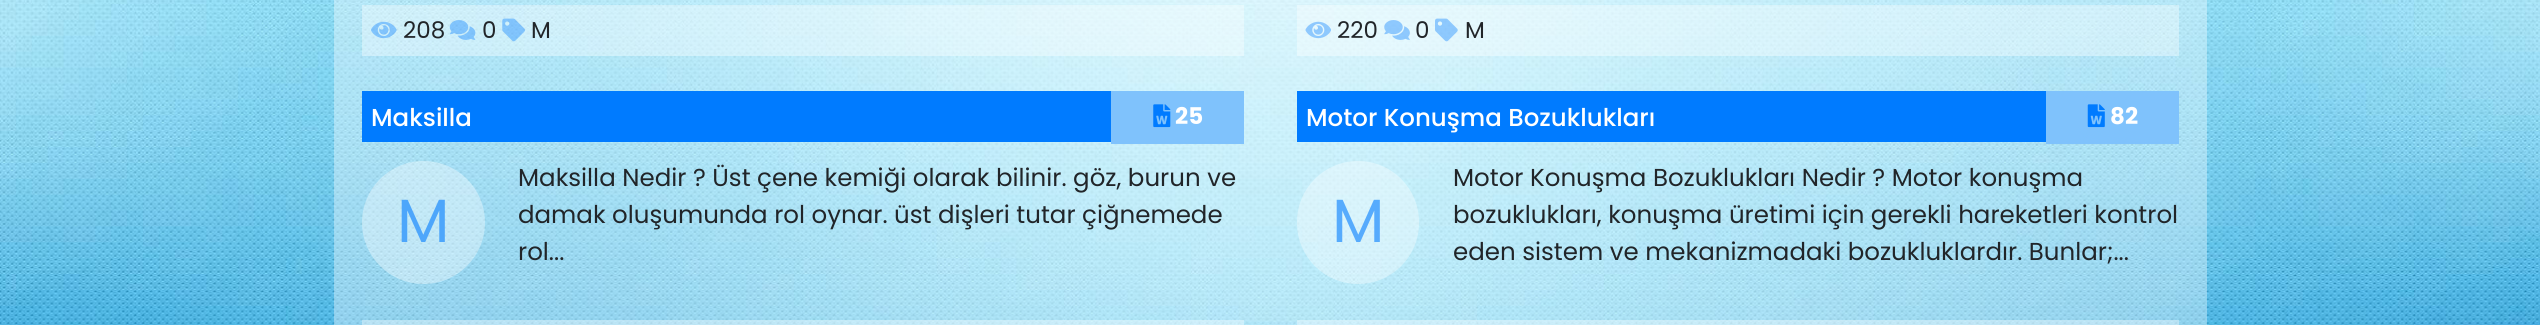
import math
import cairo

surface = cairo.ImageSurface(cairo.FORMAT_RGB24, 2540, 325)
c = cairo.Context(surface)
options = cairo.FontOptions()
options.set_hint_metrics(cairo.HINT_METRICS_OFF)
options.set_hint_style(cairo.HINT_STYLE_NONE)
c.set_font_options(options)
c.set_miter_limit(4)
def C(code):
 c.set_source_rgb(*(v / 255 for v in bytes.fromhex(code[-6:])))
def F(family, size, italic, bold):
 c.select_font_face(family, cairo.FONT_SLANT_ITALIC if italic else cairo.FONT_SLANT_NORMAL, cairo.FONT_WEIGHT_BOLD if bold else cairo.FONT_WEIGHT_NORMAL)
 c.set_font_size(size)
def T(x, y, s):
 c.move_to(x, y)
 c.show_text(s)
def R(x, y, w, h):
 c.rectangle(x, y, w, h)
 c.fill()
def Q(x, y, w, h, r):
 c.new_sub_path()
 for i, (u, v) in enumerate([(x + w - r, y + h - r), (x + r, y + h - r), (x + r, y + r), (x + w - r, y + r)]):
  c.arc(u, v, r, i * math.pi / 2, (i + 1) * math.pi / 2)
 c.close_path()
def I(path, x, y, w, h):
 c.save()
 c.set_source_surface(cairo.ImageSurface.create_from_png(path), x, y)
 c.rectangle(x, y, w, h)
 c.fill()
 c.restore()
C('ffffff')
c.paint()
I('1.png',0,0,2540,325)
c.set_source_rgba(1,1,1,0.36)
R(334,0,1873,325)
R(362,5,882,51)
I('2.png',371,21,26,18)
F('Poppins',23,0,0)
C('212529')
T(403,38,'208')
I('3.png',449,20,27,20)
T(482,38,'0')
I('4.png',502,18,23,24)
T(531,38,'M')
c.set_source_rgba(1,1,1,0.36)
R(1297,5,882,51)
I('5.png',1305,21,26,18)
C('212529')
T(1337,38,'220')
I('6.png',1384,20,26,20)
T(1415,38,'0')
I('7.png',1435,18,23,24)
T(1465,38,'M')
C('007bff')
R(362,91,749,51)
F('Poppins Medium',24.5,0,0)
C('ffffff')
T(371,126,'Maksilla')
C('7fc2fc')
R(1111,91,133,53)
I('8.png',1153,104,18,24)
F('Poppins',23,0,1)
C('ffffff')
T(1175,124,'25')
c.set_source_rgba(1,1,1,0.36)
c.new_path()
c.arc(423.5,222.5,61.5,0,2 * math.pi)
c.fill()
F('Poppins',61,0,0)
C('4da6fb')
T(397,242,'M')
F('Poppins',24.5,0,0)
C('212529')
T(518,186,'Maksilla Nedir ? Üst çene kemiği olarak bilinir. göz, burun ve')
T(518,223,'damak oluşumunda rol oynar. üst dişleri tutar çiğnemede')
T(518,260,'rol...')
c.set_source_rgba(1,1,1,0.36)
R(362,320,882,5)
C('007bff')
R(1297,91,749,51)
F('Poppins Medium',24.5,0,0)
C('ffffff')
T(1306,126,'Motor Konuşma Bozuklukları')
C('7fc2fc')
R(2046,91,133,53)
I('9.png',2087,104,18,24)
F('Poppins',23,0,1)
C('ffffff')
T(2110,124,'82')
c.set_source_rgba(1,1,1,0.36)
Q(1297,161,122,123,61)
c.fill()
F('Poppins',61,0,0)
C('56abfd')
T(1332,242,'M')
F('Poppins',24.5,0,0)
C('212529')
T(1453,186,'Motor Konuşma Bozuklukları Nedir ? Motor konuşma')
T(1453,223,'bozuklukları, konuşma üretimi için gerekli hareketleri kontrol')
T(1453,260,'eden sistem ve mekanizmadaki bozukluklardır. Bunlar;...')
c.set_source_rgba(1,1,1,0.36)
R(1297,320,882,5)
surface.write_to_png('o.png')
